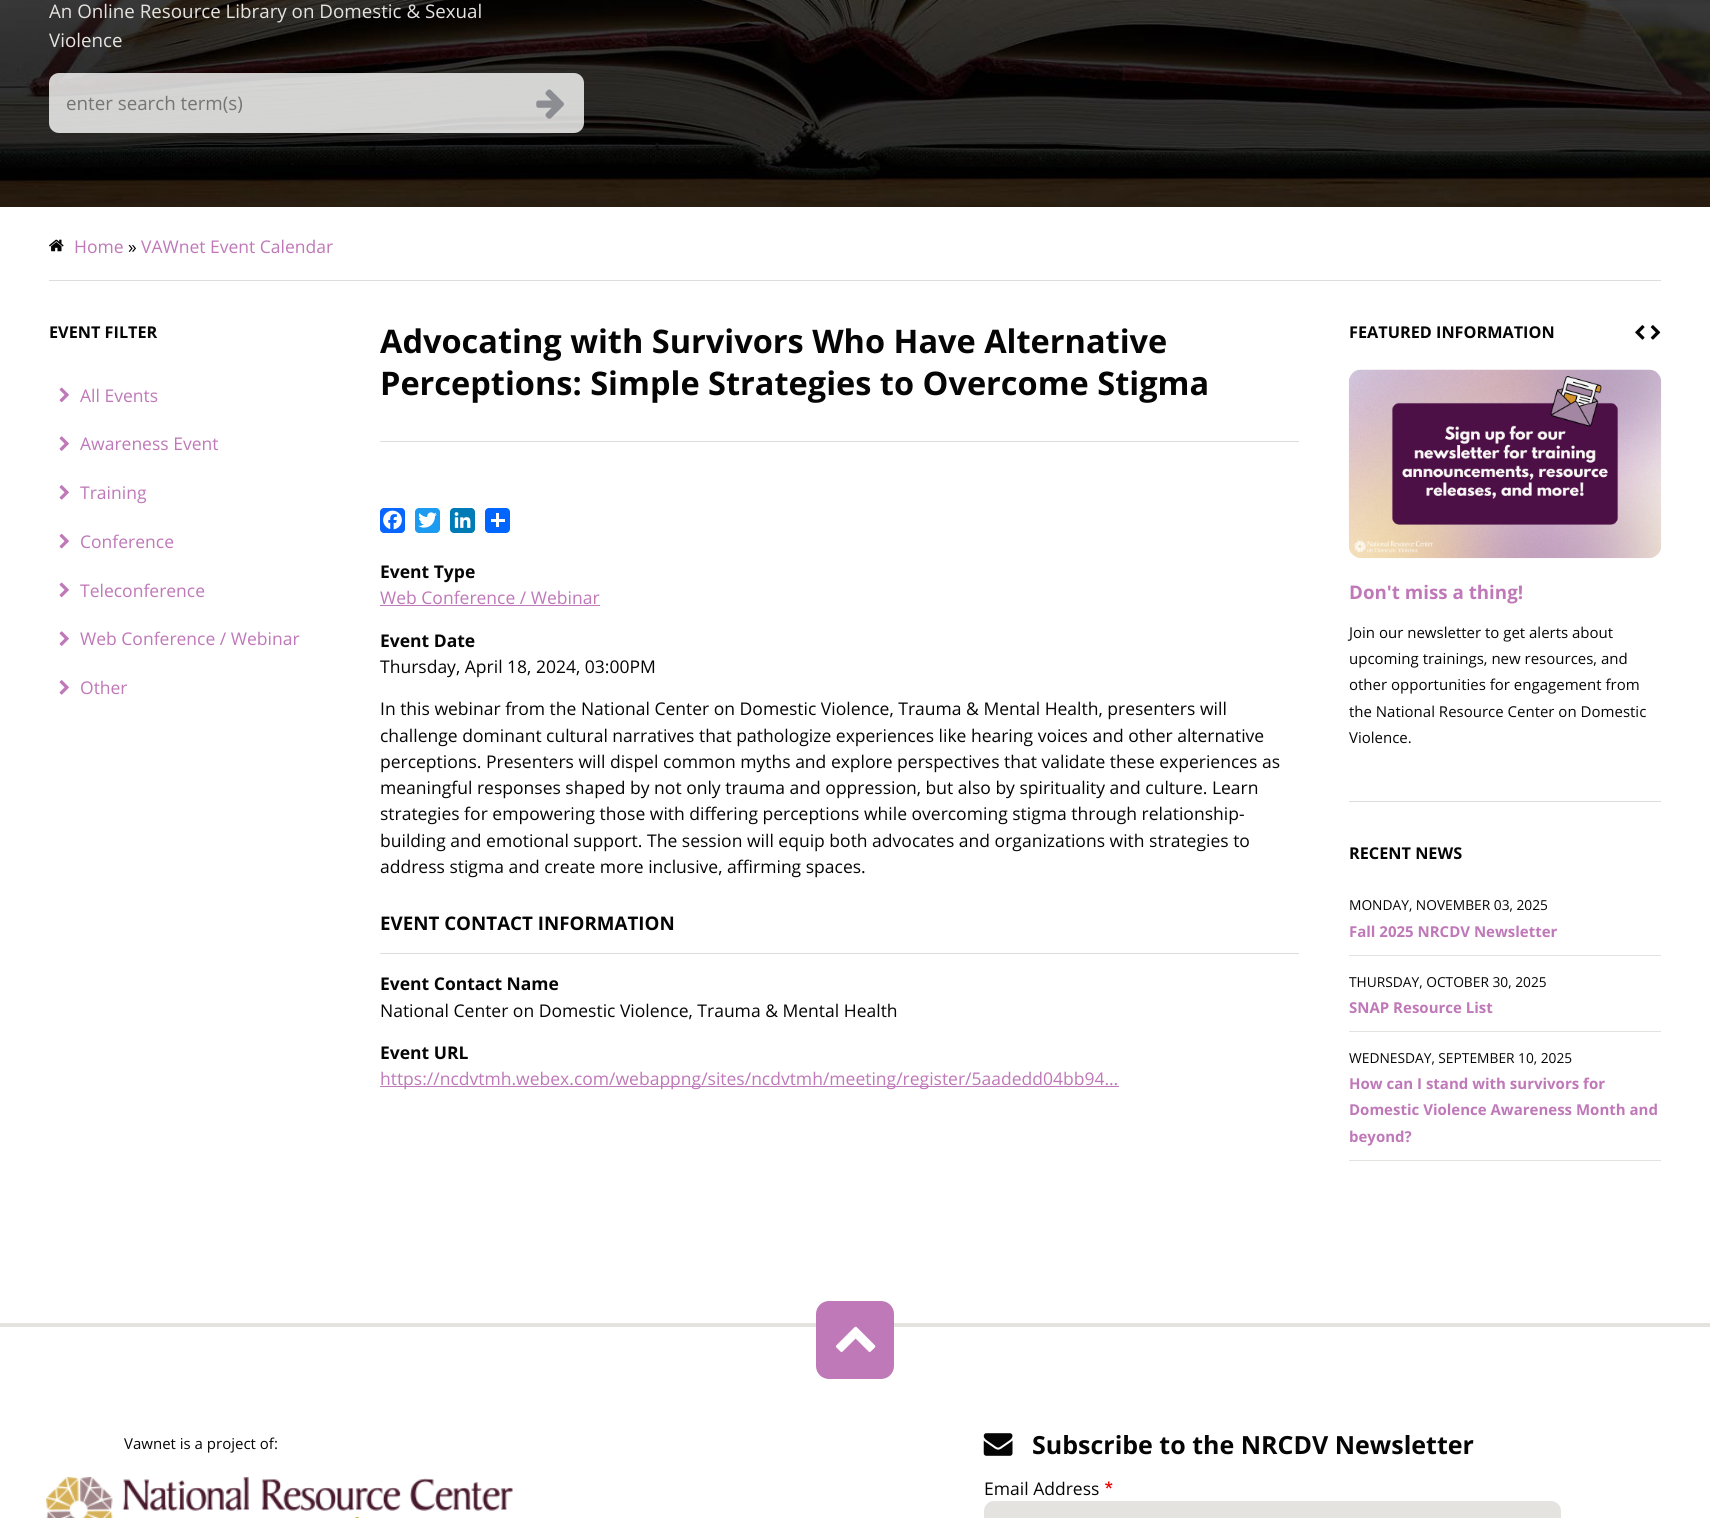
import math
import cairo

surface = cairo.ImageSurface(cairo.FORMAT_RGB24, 1710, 1518)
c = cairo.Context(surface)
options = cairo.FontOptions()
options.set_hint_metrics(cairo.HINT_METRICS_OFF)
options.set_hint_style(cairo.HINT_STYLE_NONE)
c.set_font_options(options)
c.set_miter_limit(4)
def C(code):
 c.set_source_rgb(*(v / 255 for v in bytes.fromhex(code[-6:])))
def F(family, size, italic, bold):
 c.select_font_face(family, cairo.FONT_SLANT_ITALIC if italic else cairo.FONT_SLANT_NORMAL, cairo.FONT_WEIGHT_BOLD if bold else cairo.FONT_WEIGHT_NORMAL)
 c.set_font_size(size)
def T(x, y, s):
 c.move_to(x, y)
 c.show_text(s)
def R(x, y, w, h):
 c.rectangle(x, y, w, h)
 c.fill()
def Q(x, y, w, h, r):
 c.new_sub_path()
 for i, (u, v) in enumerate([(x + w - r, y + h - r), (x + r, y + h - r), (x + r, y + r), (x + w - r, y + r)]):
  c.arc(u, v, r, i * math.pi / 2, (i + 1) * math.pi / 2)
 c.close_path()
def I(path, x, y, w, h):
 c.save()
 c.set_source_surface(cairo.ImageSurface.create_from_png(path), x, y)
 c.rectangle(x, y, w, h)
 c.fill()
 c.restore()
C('ffffff')
c.paint()
I('1.png',0,0,1710,207)
F('Open Sans',18.75,0,0)
C('e5e3e0')
T(49,18,'An Online Resource Library on Domestic & Sexual')
T(49,47,'Violence')
c.set_source_rgba(1,1,1,0.8)
Q(49,73,535,60,10)
c.fill()
C('757575')
T(66,110,'enter search term(s)')
I('2.png',536,89,28,30)
C('dddddd')
R(49,280,1612,1)
I('3.png',49,239,15,13)
F('Open Sans',17.5,0,0)
C('bf78b8')
T(74,253,'Home')
C('050505')
T(128,253,'»')
C('bf78b8')
T(141,253,'VAWnet Event Calendar')
F('Open Sans',16.25,0,1)
C('050505')
T(49,338,'EVENT FILTER')
I('4.png',59,387,10,16)
F('Open Sans',17.5,0,0)
C('bf78b8')
T(80,402,'All Events')
I('5.png',59,436,10,15)
T(80,450,'Awareness Event')
I('6.png',59,485,10,15)
T(80,499,'Training')
I('7.png',59,533,10,16)
T(80,548,'Conference')
I('4.png',59,582,10,16)
T(80,597,'Teleconference')
I('5.png',59,631,10,15)
T(80,645,'Web Conference / Webinar')
I('6.png',59,680,10,15)
T(80,694,'Other')
C('dddddd')
R(380,441,919,1)
F('Open Sans',32.5,0,1)
C('050505')
T(380,353,'Advocating with Survivors Who Have Alternative')
T(380,395,'Perceptions: Simple Strategies to Overcome Stigma')
C('0866ff')
Q(380,508,25,25,4)
c.fill()
I('8.png',383,510,19,20)
C('1d9bf0')
Q(415,508,25,25,4)
c.fill()
I('9.png',418,512,19,16)
C('007bb5')
Q(450,508,25,25,4)
c.fill()
I('10.png',454,512,17,16)
C('0166ff')
Q(485,508,25,25,4)
c.fill()
C('ffffff')
R(496,513,3,14)
R(491,519,14,3)
F('Open Sans',17.5,0,1)
C('050505')
T(380,578,'Event Type')
F('Open Sans',17.5,0,0)
C('bf78b8')
T(380,604,'Web Conference / Webinar')
R(380,605,220,1)
F('Open Sans',17.5,0,1)
C('050505')
T(380,647,'Event Date')
F('Open Sans',17.5,0,0)
T(380,673,'Thursday, April 18, 2024, 03:00PM')
T(380,715,'In this webinar from the National Center on Domestic Violence, Trauma & Mental Health, presenters will')
T(380,742,'challenge dominant cultural narratives that pathologize experiences like hearing voices and other alternative')
T(380,768,'perceptions. Presenters will dispel common myths and explore perspectives that validate these experiences as')
T(380,794,'meaningful responses shaped by not only trauma and oppression, but also by spirituality and culture. Learn')
T(380,820,'strategies for empowering those with differing perceptions while overcoming stigma through relationship-')
T(380,847,'building and emotional support. The session will equip both advocates and organizations with strategies to')
T(380,873,'address stigma and create more inclusive, affirming spaces.')
C('dddddd')
R(380,953,919,1)
F('Open Sans',18.75,0,1)
C('050505')
T(380,930,'EVENT CONTACT INFORMATION')
F('Open Sans',17.5,0,1)
T(380,990,'Event Contact Name')
F('Open Sans',17.5,0,0)
T(380,1017,'National Center on Domestic Violence, Trauma & Mental Health')
F('Open Sans',17.5,0,1)
T(380,1059,'Event URL')
C('bf78b8')
R(380,1086,739,1)
F('Open Sans',17.5,0,0)
T(380,1085,'https://ncdvtmh.webex.com/webappng/sites/ncdvtmh/meeting/register/5aadedd04bb94…')
F('Open Sans',16.25,0,1)
C('050505')
T(1349,338,'FEATURED INFORMATION')
C('dddddd')
R(1349,801,312,1)
I('11.png',1635,325,10,15)
I('12.png',1650,325,11,15)
I('13.png',1348,369,314,190)
F('Open Sans',18.75,0,1)
C('bf78b8')
T(1349,599,'Don\'t miss a thing!')
F('Open Sans',15,0,0)
C('050505')
T(1349,638,'Join our newsletter to get alerts about')
T(1349,664,'upcoming trainings, new resources, and')
T(1349,690,'other opportunities for engagement from')
T(1349,717,'the National Resource Center on Domestic')
T(1349,743,'Violence.')
F('Open Sans',16.25,0,1)
T(1349,859,'RECENT NEWS')
C('e5e3e0')
R(1349,955,312,1)
F('Open Sans',13.75,0,0)
C('050505')
T(1349,910,'MONDAY, NOVEMBER 03, 2025')
F('Open Sans',15,0,1)
C('bf78b8')
T(1349,937,'Fall 2025 NRCDV Newsletter')
C('e5e3e0')
R(1349,1031,312,1)
F('Open Sans',13.75,0,0)
C('050505')
T(1349,987,'THURSDAY, OCTOBER 30, 2025')
F('Open Sans',15,0,1)
C('bf78b8')
T(1349,1013,'SNAP Resource List')
C('e5e3e0')
R(1349,1160,312,1)
F('Open Sans',13.75,0,0)
C('050505')
T(1349,1063,'WEDNESDAY, SEPTEMBER 10, 2025')
F('Open Sans',15,0,1)
C('bf78b8')
T(1349,1089,'How can I stand with survivors for')
T(1349,1115,'Domestic Violence Awareness Month and')
T(1349,1142,'beyond?')
C('e5e3e0')
R(0,1323,1710,4)
C('bf78b8')
Q(816,1301,78,78,13)
c.fill()
I('14.png',836,1326,40,26)
F('Open Sans',15,0,0)
C('050505')
T(124,1449,'Vawnet is a project of:')
I('15.png',46,1477,467,41)
I('16.png',983,1433,30,23)
F('Open Sans',25,0,1)
T(1032,1454,'Subscribe to the NRCDV Newsletter')
F('Open Sans',17.5,0,0)
T(984,1495,'Email Address')
I('17.png',1105,1481,8,8)
C('e5e3e0')
Q(984,1501,577,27,10)
c.fill()
surface.write_to_png('o.png')
